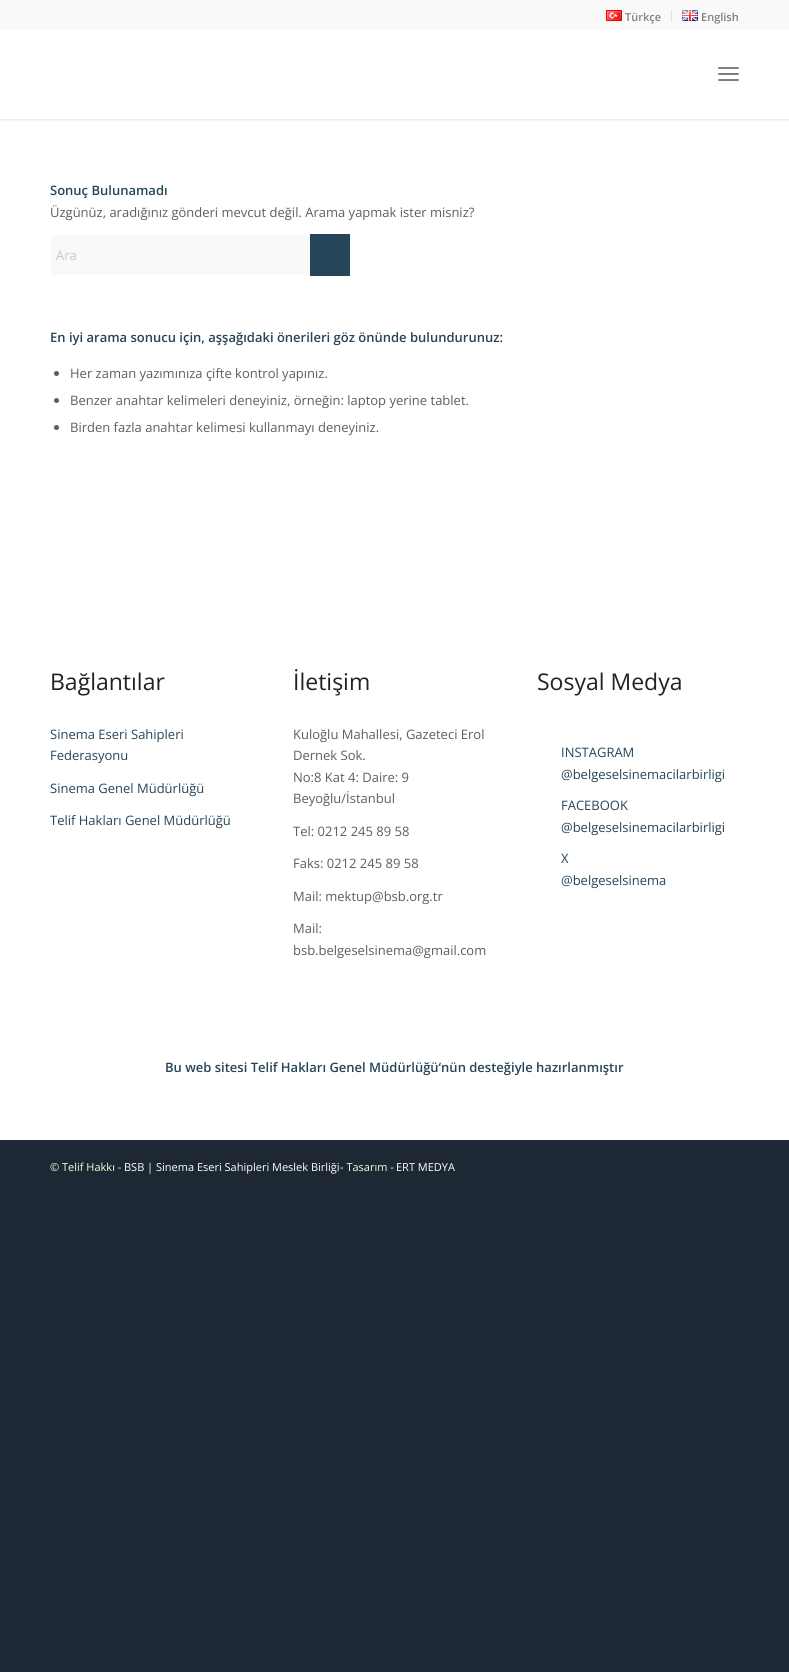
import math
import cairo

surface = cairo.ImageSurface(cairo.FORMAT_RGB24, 789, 1672)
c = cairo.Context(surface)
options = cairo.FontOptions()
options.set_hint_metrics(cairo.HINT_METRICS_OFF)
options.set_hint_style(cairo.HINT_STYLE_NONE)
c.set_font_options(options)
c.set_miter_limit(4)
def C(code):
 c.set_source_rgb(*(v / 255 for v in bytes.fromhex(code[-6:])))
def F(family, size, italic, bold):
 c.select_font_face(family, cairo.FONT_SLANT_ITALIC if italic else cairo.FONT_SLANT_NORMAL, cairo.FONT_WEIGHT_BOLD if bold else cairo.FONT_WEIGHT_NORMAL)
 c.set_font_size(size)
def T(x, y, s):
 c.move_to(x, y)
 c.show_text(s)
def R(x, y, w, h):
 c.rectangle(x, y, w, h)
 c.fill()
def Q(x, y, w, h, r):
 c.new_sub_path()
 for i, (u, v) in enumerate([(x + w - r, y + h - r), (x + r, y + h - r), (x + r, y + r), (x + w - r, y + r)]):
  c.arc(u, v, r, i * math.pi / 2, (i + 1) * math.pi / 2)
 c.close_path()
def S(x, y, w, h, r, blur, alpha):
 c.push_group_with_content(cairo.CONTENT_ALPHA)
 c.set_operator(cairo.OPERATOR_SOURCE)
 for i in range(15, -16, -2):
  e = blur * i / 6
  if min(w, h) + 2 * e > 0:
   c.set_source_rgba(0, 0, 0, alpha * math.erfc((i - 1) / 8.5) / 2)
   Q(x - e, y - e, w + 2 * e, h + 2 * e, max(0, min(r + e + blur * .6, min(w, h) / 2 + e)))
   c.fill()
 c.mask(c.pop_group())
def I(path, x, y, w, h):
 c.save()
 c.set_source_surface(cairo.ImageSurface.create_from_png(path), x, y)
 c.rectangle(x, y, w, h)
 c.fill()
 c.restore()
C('1d2834')
c.paint()
C('ffffff')
R(0,30,789,1110)
c.save()
c.rectangle(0,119,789,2)
c.clip()
C('000000')
S(-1,-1,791,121,0,1,.1)
c.restore()
C('f9f9f9')
R(0,0,789,30)
C('e1e1e1')
R(671,10,1,12)
I('1.png',606,10,16,11)
F('Open Sans SemiBold',11,0,0)
C('808080')
T(625,21,'Türkçe')
I('2.png',682,10,16,11)
T(701,21,'English')
Q(718,73,21,2,1)
c.fill()
Q(718,67,21,2,1)
c.fill()
Q(718,79,21,2,1)
c.fill()
F('Open Sans SemiBold',13,0,0)
C('274559')
T(50,195,'Sonuç Bulunamadı')
F('Open Sans',13,0,0)
C('5e5e5e')
T(50,217,'Üzgünüz, aradığınız gönderi mevcut değil. Arama yapmak ister misniz?')
C('f9f9f9')
R(51,235,259,40)
C('c5c5c5')
T(56,260,'Ara')
C('274559')
R(310,234,40,42)
F('Open Sans SemiBold',13,0,0)
T(50,342,'En iyi arama sonucu için, aşşağıdaki önerileri göz önünde bulundurunuz:')
C('5e5e5e')
c.new_path()
c.arc(56.5,373.5,2.5,0,2 * math.pi)
c.fill()
F('Open Sans',13,0,0)
T(70,378,'Her zaman yazımınıza çifte kontrol yapınız.')
c.new_path()
c.arc(56.5,400.5,2.5,0,2 * math.pi)
c.fill()
T(70,405,'Benzer anahtar kelimeleri deneyiniz, örneğin: laptop yerine tablet.')
c.new_path()
c.arc(56.5,427.5,2.5,0,2 * math.pi)
c.fill()
T(70,432,'Birden fazla anahtar kelimesi kullanmayı deneyiniz.')
F('Open Sans',23,0,0)
C('222222')
T(50,690,'Bağlantılar')
F('Open Sans',13,0,0)
C('274559')
T(50,739,'Sinema Eseri Sahipleri')
T(50,760,'Federasyonu')
T(50,793,'Sinema Genel Müdürlüğü')
T(50,825,'Telif Hakları Genel Müdürlüğü')
F('Open Sans',23,0,0)
C('222222')
T(293,690,'İletişim')
F('Open Sans',13,0,0)
C('5e5e5e')
T(293,739,'Kuloğlu Mahallesi, Gazeteci Erol')
T(293,760,'Dernek Sok.')
T(293,782,'No:8 Kat 4: Daire: 9')
T(293,803,'Beyoğlu/İstanbul')
T(293,836,'Tel: 0212 245 89 58')
T(293,868,'Faks: 0212 245 89 58')
T(293,901,'Mail: mektup@bsb.org.tr')
T(293,933,'Mail:')
T(293,955,'bsb.belgeselsinema@gmail.com')
F('Open Sans',23,0,0)
C('222222')
T(537,690,'Sosyal Medya')
F('Open Sans',13,0,0)
C('274559')
T(561,757,'INSTAGRAM')
T(561,779,'@belgeselsinemacilarbirligi')
T(561,810,'FACEBOOK')
T(561,832,'@belgeselsinemacilarbirligi')
T(561,863,'X')
T(561,885,'@belgeselsinema')
F('Open Sans SemiBold',13,0,0)
T(165,1072,'Bu web sitesi Telif Hakları Genel Müdürlüğü‘nün desteğiyle hazırlanmıştır')
F('Open Sans',11,0,0)
C('f3ffde')
T(50,1171,'© Telif Hakkı -')
C('ffffff')
T(124,1171,'BSB | Sinema Eseri Sahipleri Meslek Birliği')
C('f3ffde')
T(340,1171,'- Tasarım -')
C('ffffff')
T(396,1171,'ERT MEDYA')
surface.write_to_png('o.png')
